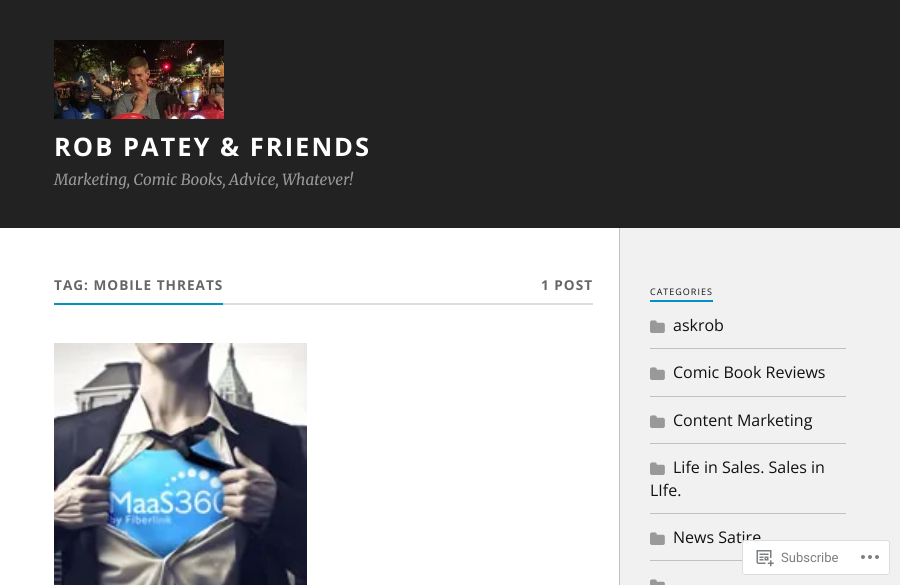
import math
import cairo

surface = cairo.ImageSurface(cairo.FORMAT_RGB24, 900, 585)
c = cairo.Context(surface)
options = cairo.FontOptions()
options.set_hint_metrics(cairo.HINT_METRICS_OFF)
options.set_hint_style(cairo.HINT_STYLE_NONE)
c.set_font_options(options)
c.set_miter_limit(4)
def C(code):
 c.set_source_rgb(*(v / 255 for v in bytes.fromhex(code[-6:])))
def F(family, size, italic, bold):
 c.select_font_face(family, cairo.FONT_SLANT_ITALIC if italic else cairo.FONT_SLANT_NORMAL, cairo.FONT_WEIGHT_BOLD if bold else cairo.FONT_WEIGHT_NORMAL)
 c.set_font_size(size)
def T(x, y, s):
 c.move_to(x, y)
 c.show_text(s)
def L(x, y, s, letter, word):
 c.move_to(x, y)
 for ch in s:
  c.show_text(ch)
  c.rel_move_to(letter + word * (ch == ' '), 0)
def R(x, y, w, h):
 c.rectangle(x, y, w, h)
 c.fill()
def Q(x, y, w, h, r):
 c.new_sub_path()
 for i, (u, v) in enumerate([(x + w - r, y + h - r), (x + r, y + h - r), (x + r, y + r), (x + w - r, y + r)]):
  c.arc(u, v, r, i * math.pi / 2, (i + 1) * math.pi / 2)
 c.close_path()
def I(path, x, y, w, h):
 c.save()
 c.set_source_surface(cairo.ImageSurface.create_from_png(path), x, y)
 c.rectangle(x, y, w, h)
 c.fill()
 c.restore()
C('f1f1f1')
c.paint()
C('222222')
R(0,0,900,228)
I('1.png',54,40,170,79)
F('Open Sans',25.5,0,1)
C('ffffff')
L(54,156,'ROB PATEY & FRIENDS',2,0)
F('Merriweather Light',15.25,1,0)
C('999999')
T(54,185,'Marketing, Comic Books, Advice, Whatever!')
C('ffffff')
R(0,228,619,357)
C('dddddd')
R(223,303,370,2)
C('0093c2')
R(54,303,169,2)
F('Open Sans',13.6,0,1)
C('666666')
L(54,290,'TAG: MOBILE THREATS',1,0)
L(541,290,'1 POST',1,0)
I('2.png',54,343,253,242)
C('c1c1c1')
R(619,228,1,357)
C('0093c2')
R(650,300,63,2)
F('Open Sans',9,0,0)
C('111111')
L(650,295,'CATEGORIES',1,0)
C('c1c1c1')
R(650,348,196,1)
I('3.png',650,320,15,13)
F('Open Sans',16,0,0)
C('111111')
T(673,331,'askrob')
C('c1c1c1')
R(650,396,196,1)
I('3.png',650,367,15,13)
C('111111')
T(673,378,'Comic Book Reviews')
C('c1c1c1')
R(650,443,196,1)
I('3.png',650,415,15,13)
C('111111')
T(673,426,'Content Marketing')
C('c1c1c1')
R(650,513,196,1)
I('3.png',650,462,15,13)
C('111111')
T(673,473,'Life in Sales. Sales in')
T(650,496,'LIfe.')
C('c1c1c1')
R(650,560,196,1)
I('3.png',650,532,15,13)
C('111111')
T(673,543,'News Satire')
I('4.png',650,579,15,6)
c.set_source_rgba(1,1,1,0.98)
Q(742,540,148,35,3)
c.fill()
Q(742.5,540.5,147,34,2.5)
c.set_source_rgba(0.863,0.863,0.871,0.98)
c.set_line_width(1)
c.stroke()
I('5.png',756,550,18,17)
F('Roboto',13,0,0)
C('7b7f84')
T(781,562,'Subscribe')
I('6.png',861,555,18,4)
surface.write_to_png('o.png')
